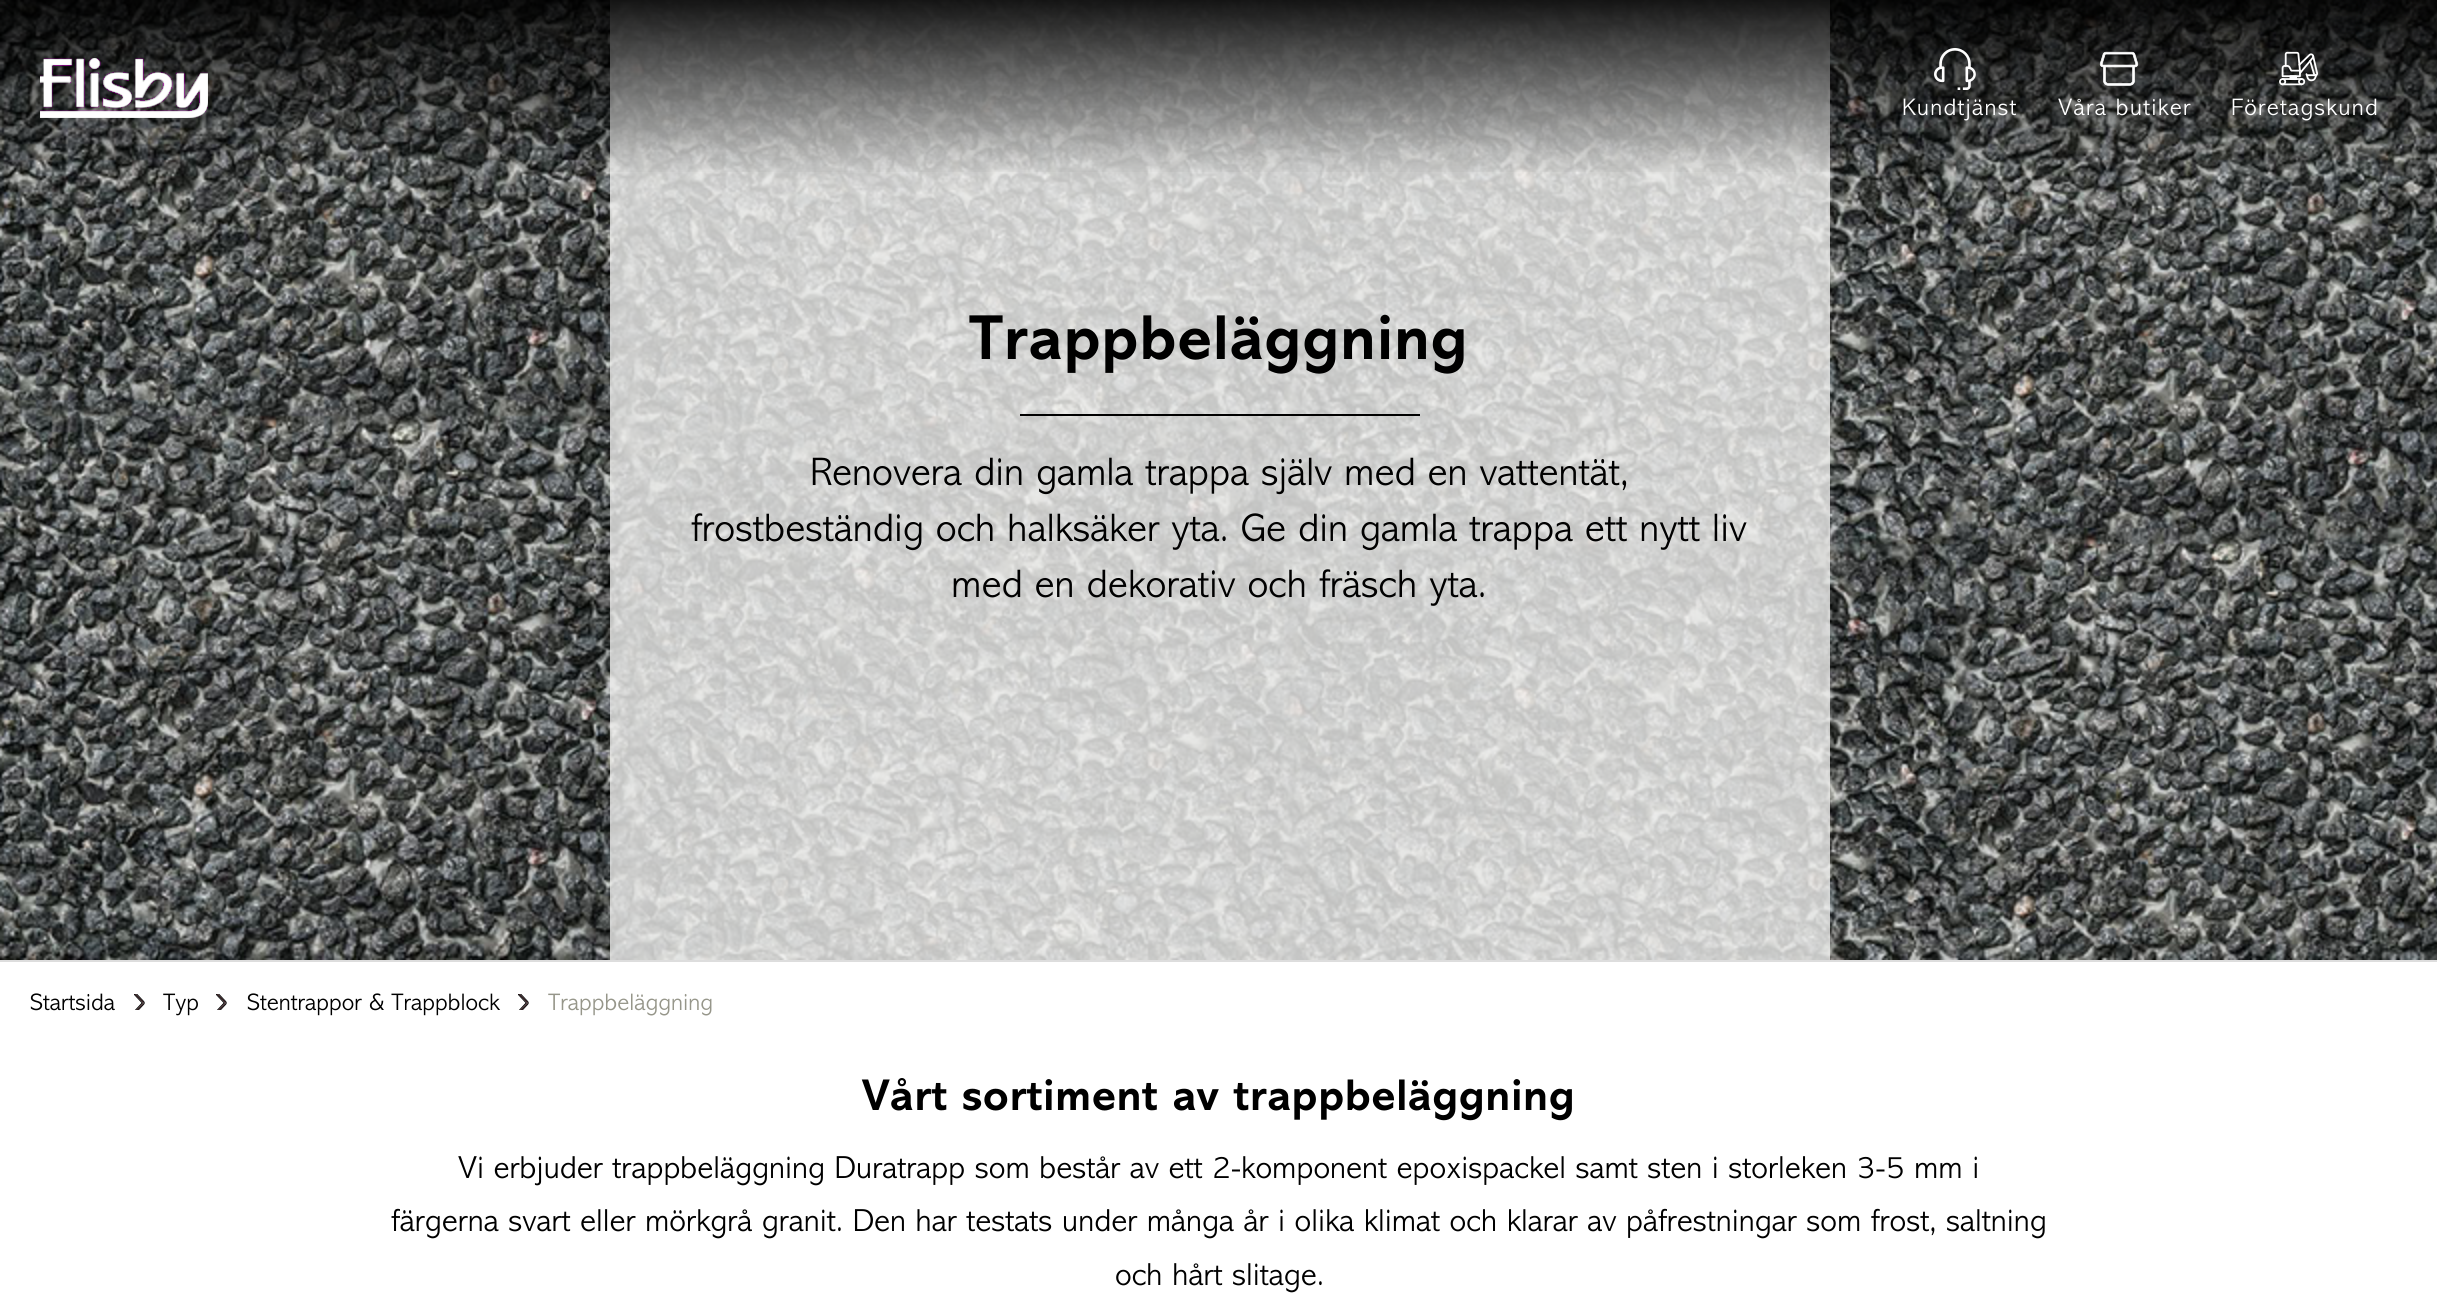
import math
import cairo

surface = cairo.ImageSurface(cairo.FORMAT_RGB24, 2437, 1313)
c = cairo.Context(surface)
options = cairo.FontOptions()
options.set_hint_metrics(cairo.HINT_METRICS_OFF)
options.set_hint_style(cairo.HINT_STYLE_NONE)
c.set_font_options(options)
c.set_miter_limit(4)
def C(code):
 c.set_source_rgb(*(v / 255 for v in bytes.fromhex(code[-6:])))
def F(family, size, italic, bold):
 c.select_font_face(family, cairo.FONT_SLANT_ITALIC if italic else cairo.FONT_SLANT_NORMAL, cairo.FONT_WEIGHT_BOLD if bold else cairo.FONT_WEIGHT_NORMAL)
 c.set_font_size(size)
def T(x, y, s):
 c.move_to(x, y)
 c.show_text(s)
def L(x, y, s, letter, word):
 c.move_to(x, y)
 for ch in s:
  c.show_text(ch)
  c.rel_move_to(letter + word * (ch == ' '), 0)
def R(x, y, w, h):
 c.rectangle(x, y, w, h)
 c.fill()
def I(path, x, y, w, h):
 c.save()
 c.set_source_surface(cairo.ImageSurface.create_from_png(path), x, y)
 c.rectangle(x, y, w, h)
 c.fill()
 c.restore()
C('ffffff')
c.paint()
I('5.png',0,0,2437,960)
c.set_source_rgba(0.941,0.941,0.933,0.8)
R(610,0,1220,960)
gradient = cairo.LinearGradient(1219,176,1219,0)
gradient.add_color_stop_rgba(0,0,0,0,0)
gradient.add_color_stop_rgba(1,0,0,0,.9)
c.set_source(gradient)
R(0,0,2437,172)
I('1.png',40,58,168,60)
I('2.png',1934,48,42,42)
F('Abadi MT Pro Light',24,0,0)
C('ffffff')
L(1902,115,'Kundtjänst',1.25,0)
I('3.png',2099,51,40,35)
L(2058,115,'Våra butiker',1.25,0)
I('4.png',2279,51,39,35)
L(2231,115,'Företagskund',1.25,0)
F('Abadi MT Pro',64,0,1)
C('000000')
L(969,359,'Trappbeläggning',.6,0)
R(1020,414,400,2)
F('Abadi MT Pro Light',40,0,0)
T(810,485,'Renovera din gamla trappa själv med en vattentät,')
T(691,541,'frostbeständig och halksäker yta. Ge din gamla trappa ett nytt liv')
T(951,597,'med en dekorativ och fräsch yta.')
C('dddddd')
R(0,960,2437,2)
F('Abadi MT Pro Light',24,0,0)
C('000000')
T(30,1010,'Startsida')
I('6.png',134,994,11,16)
T(163,1010,'Typ')
I('6.png',216,994,11,16)
T(247,1010,'Stentrappor & Trappblock')
I('6.png',518,994,11,16)
C('96968a')
T(548,1010,'Trappbeläggning')
F('Abadi MT Pro',44.75,0,1)
C('000000')
L(862,1110,'Vårt sortiment av trappbeläggning',.45,0)
F('Abadi MT Pro Light',32,0,0)
T(458,1178,'Vi erbjuder trappbeläggning Duratrapp som består av ett 2-komponent epoxispackel samt sten i storleken 3-5 mm i')
T(391,1231,'färgerna svart eller mörkgrå granit. Den har testats under många år i olika klimat och klarar av påfrestningar som frost, saltning')
T(1115,1285,'och hårt slitage.')
surface.write_to_png('o.png')
